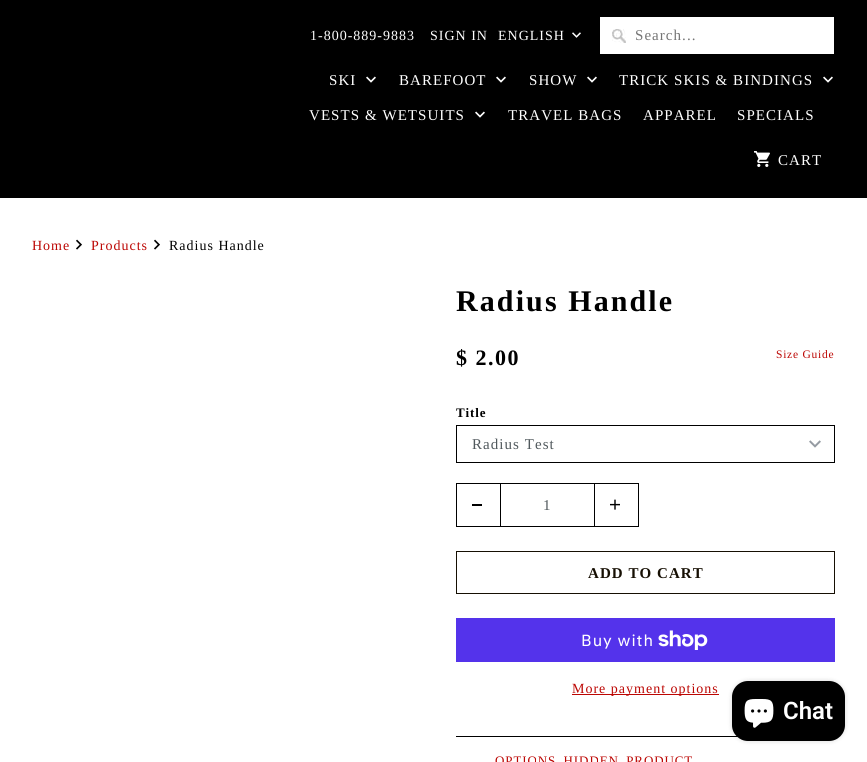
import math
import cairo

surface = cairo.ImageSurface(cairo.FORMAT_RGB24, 867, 762)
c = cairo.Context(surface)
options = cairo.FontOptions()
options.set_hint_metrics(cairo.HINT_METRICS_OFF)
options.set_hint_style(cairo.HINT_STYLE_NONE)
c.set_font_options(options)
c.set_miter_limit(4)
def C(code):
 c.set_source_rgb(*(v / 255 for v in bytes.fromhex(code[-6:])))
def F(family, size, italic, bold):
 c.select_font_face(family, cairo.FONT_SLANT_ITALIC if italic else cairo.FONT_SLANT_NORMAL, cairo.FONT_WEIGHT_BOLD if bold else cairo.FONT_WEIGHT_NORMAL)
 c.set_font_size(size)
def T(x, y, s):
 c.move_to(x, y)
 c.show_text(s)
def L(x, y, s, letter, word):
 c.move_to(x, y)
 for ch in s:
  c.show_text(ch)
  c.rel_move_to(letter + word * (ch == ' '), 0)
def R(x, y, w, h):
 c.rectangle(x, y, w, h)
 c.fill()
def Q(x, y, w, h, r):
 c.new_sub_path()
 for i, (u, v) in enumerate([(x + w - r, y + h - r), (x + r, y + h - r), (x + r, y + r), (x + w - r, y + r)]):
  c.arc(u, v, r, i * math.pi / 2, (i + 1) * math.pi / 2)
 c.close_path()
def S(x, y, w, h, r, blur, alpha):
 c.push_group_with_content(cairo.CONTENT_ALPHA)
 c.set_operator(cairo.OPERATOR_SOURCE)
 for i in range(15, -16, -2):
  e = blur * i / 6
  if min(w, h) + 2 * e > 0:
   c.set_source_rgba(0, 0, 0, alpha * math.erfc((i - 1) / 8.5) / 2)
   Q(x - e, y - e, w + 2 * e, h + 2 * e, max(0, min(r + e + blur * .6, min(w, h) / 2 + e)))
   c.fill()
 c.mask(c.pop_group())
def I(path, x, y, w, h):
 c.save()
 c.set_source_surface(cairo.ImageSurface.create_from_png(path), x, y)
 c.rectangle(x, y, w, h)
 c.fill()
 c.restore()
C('ffffff')
c.paint()
C('000000')
R(0,0,867,198)
F('Liberation Serif',14,0,0)
C('ffffff')
L(310,40,'1-800-889-9883',1,0)
L(430,40,'SIGN IN',1,0)
L(498,40,'ENGLISH',1,0)
I('1.png',572,32,9,6)
R(600,17,234,37)
I('2.png',612,29,14,14)
F('Liberation Serif',15,0,0)
C('757575')
L(635,40,'Search...',1.05,0)
C('ffffff')
L(329,85,'SKI',1.05,0)
I('3.png',366,76,10,7)
L(399,85,'BAREFOOT',1.05,0)
I('3.png',496,76,10,7)
L(529,85,'SHOW',1.05,0)
I('3.png',587,76,10,7)
L(619,85,'TRICK SKIS & BINDINGS',1.05,0)
I('3.png',823,76,10,7)
L(309,120,'VESTS & WETSUITS',1.05,0)
I('3.png',475,111,10,7)
L(508,120,'TRAVEL BAGS',1.05,0)
L(643,120,'APPAREL',1.05,0)
L(737,120,'SPECIALS',1.05,0)
I('4.png',754,151,16,16)
L(778,165,'CART',1.05,0)
F('Liberation Serif',14,0,0)
C('bc0603')
L(32,250,'Home',1,0)
I('5.png',76,239,6,11)
L(91,250,'Products',1,0)
I('5.png',154,239,6,11)
C('000000')
L(169,250,'Radius Handle',1,0)
F('Liberation Serif',30,0,1)
L(456,311,'Radius Handle',2.1,0)
F('Liberation Serif',22,0,1)
L(456,365,'$ 2.00',1.5,0)
F('Liberation Serif',11.5,0,0)
C('bc0603')
L(776,358,'Size Guide',.75,0)
F('Liberation Serif',13,0,1)
C('000000')
L(456,417,'Title',.9,0)
I('6.png',809,440,12,8)
c.rectangle(456.5,425.5,378,37)
c.set_line_width(1)
c.stroke()
F('Liberation Serif',15,0,0)
C('51595d')
L(472,449,'Radius Test',1.05,0)
C('000000')
R(456,483,44,1)
R(456,526,44,1)
R(456,483,1,44)
R(472,504,10,2)
c.rectangle(500.5,483.5,94,43)
c.stroke()
C('51595d')
L(543,510,'1',1.05,0)
C('000000')
R(595,483,44,1)
R(638,483,1,44)
R(595,526,44,1)
I('7.png',610,499,10,11)
c.rectangle(456.5,551.5,378,42)
C('160f03')
c.stroke()
F('Liberation Serif',15,0,1)
L(588,578,'ADD TO CART',1.05,0)
C('5433eb')
R(456,618,379,44)
F('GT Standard',16,0,0)
C('ffffff')
L(581,646,'Buy with',1,0)
I('8.png',658,630,50,20)
C('bc0603')
R(572,694,147,1)
F('Liberation Serif',14,0,0)
L(572,693,'More payment options',1,0)
C('000000')
R(456,736,282,1)
F('Liberation Serif',13,0,0)
C('bc0603')
L(495,765,'OPTIONS_HIDDEN_PRODUCT',.9,0)
C('000000')
S(732,681,113,60,16,2.5,.15)
C('000000')
Q(732,681,113,60,16)
c.fill()
I('9.png',744,699,30,29)
F('Roboto SemiBold',24,0,0)
C('ffffff')
T(783,719,'Chat')
surface.write_to_png('o.png')
